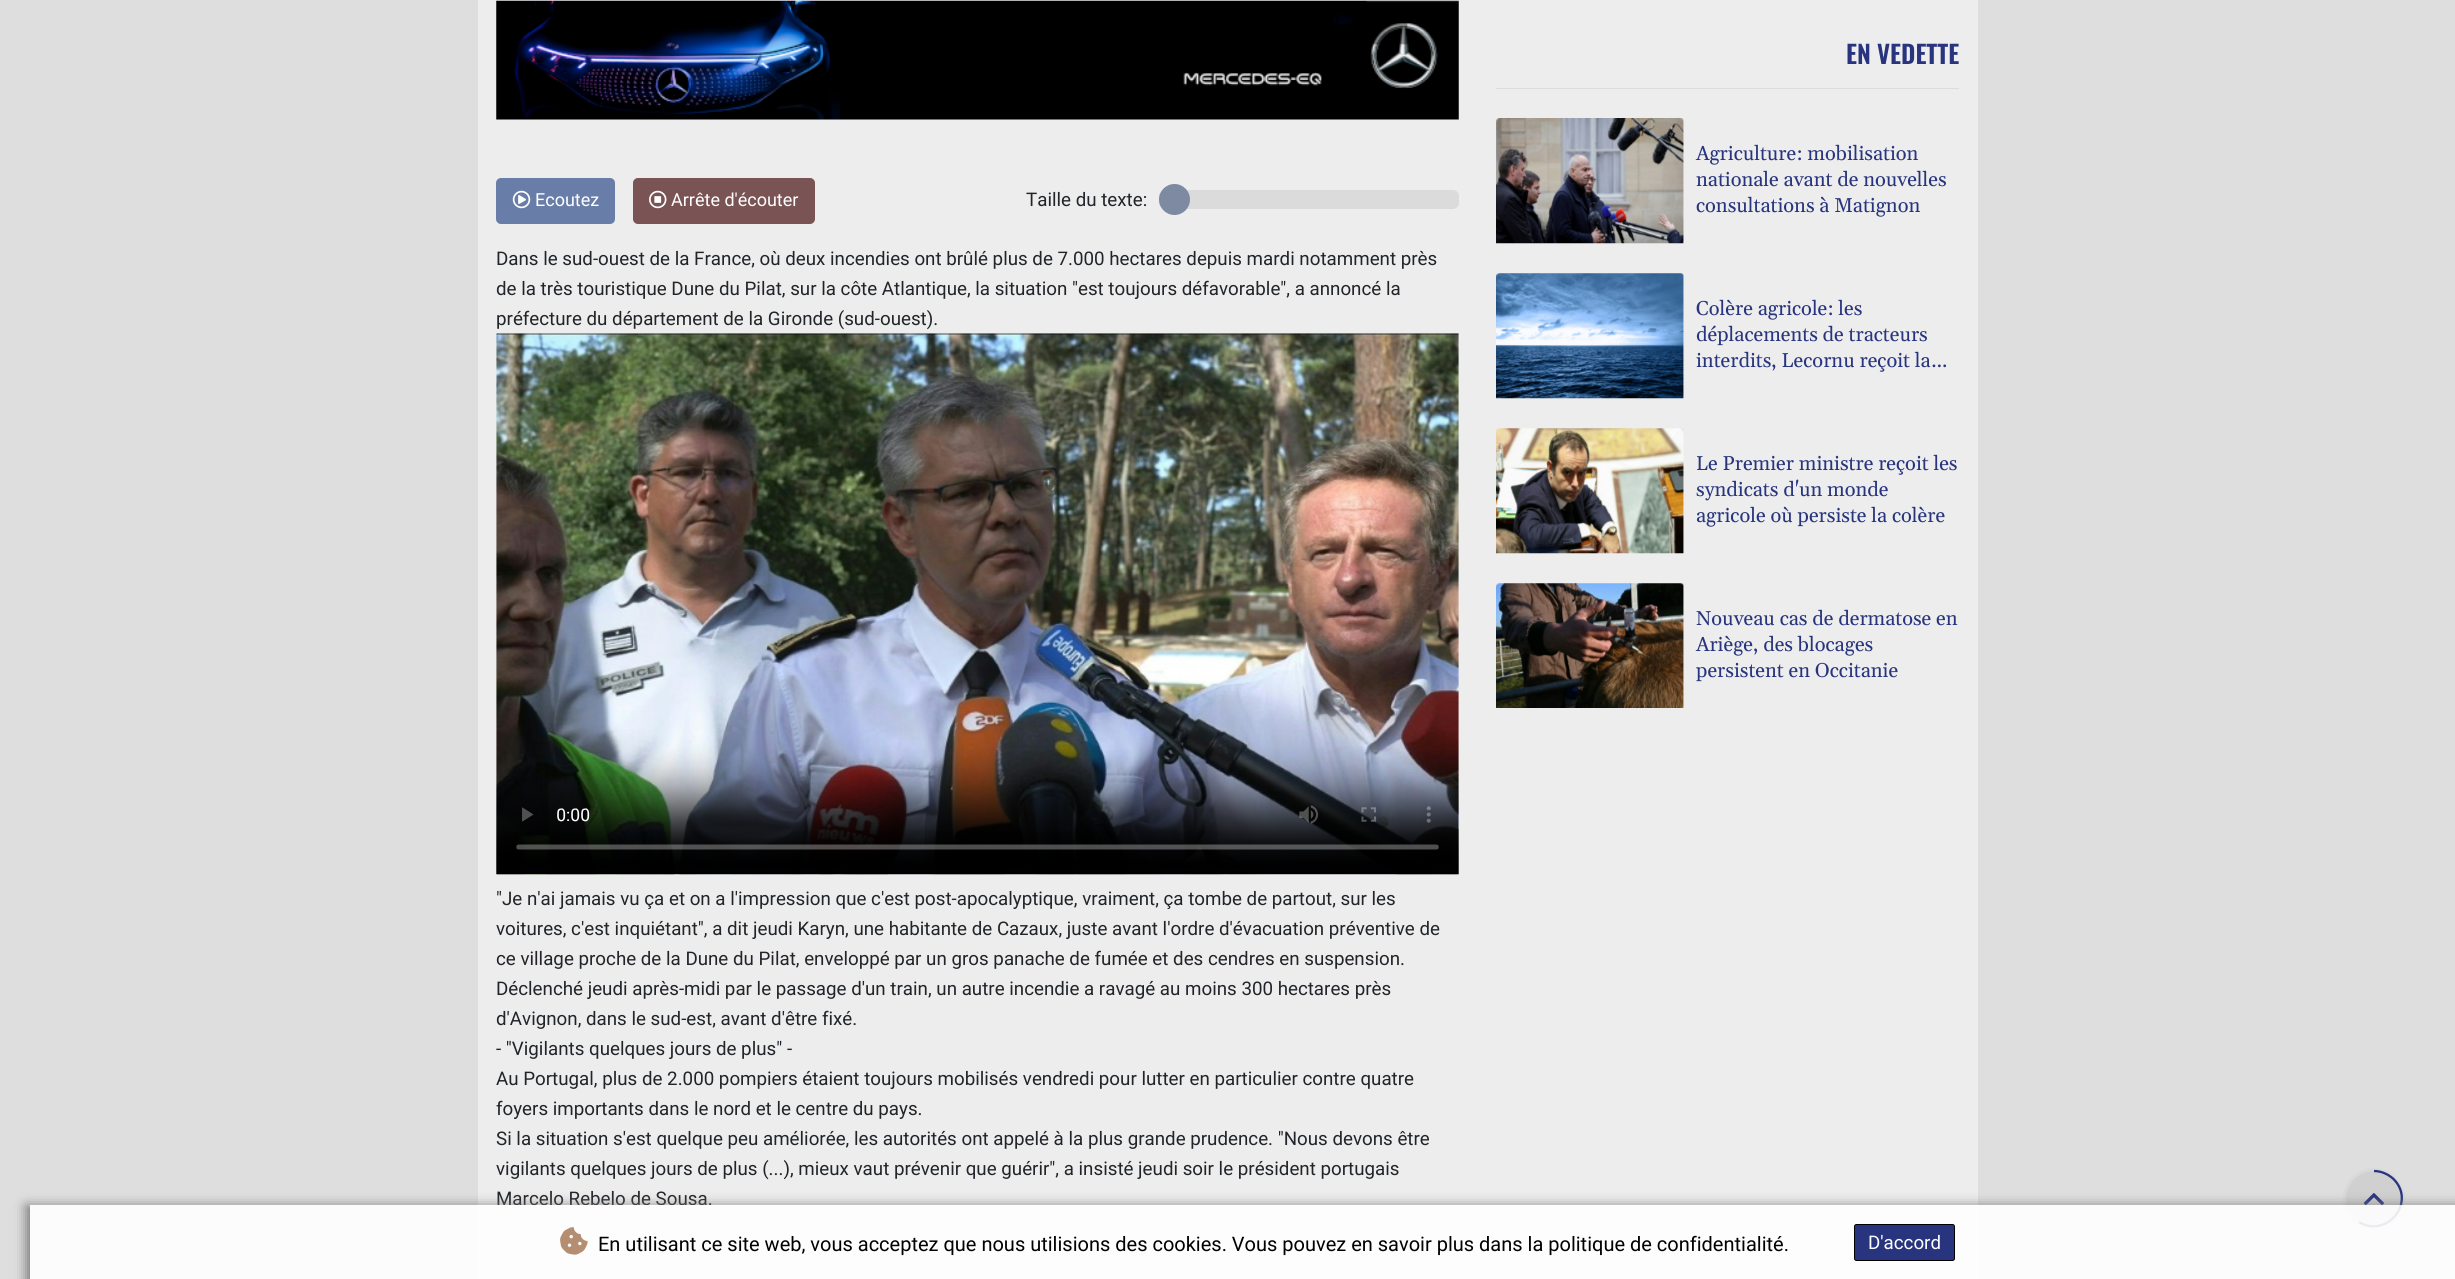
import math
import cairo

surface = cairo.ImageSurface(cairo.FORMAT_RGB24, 2455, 1279)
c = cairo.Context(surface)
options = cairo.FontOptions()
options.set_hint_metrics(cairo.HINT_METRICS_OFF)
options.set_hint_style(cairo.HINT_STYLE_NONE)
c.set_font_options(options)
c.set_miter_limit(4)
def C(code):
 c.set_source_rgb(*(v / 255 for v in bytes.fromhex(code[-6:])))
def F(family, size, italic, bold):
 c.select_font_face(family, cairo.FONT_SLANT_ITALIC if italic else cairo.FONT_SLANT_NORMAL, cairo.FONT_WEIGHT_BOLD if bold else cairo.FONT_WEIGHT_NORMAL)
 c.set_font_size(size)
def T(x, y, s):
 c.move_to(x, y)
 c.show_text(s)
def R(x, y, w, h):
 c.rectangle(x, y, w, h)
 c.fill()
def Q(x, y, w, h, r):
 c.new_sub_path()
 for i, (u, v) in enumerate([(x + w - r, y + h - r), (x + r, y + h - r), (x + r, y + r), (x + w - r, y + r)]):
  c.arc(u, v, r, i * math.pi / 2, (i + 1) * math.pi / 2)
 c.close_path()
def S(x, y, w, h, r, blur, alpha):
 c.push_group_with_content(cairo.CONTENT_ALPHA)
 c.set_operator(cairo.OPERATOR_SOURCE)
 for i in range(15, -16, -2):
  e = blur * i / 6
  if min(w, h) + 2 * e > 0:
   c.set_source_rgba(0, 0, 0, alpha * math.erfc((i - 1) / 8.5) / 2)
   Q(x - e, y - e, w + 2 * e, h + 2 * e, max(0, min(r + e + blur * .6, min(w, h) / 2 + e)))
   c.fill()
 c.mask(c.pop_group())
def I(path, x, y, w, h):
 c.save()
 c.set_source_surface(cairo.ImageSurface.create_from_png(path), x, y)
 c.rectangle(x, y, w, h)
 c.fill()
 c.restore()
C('dedede')
c.paint()
C('ededed')
R(478,0,1500,1279)
I('1.png',496,0,963,120)
C('687da8')
Q(496,178,119,46,5)
c.fill()
I('2.png',512,190,19,19)
F('Roboto',18,0,0)
C('ffffff')
T(535,206,'Ecoutez')
C('7a5454')
Q(633,178,182,46,5)
c.fill()
I('3.png',649,190,18,19)
C('ffffff')
T(671,206,'Arrête d\'écouter')
F('Roboto',18.75,0,0)
C('212529')
T(1026,206,'Taille du texte:')
C('dbdbdb')
Q(1159,190,300,19,6)
c.fill()
C('7e8aa2')
c.arc(1174.5,199.5,15.5,0,2 * math.pi)
c.fill()
C('212529')
T(496,265,'Dans le sud-ouest de la France, où deux incendies ont brûlé plus de 7.000 hectares depuis mardi notamment près')
T(496,295,'de la très touristique Dune du Pilat, sur la côte Atlantique, la situation "est toujours défavorable", a annoncé la')
T(496,325,'préfecture du département de la Gironde (sud-ouest).')
I('4.png',496,333,963,542)
T(496,905,'"Je n\'ai jamais vu ça et on a l\'impression que c\'est post-apocalyptique, vraiment, ça tombe de partout, sur les')
T(496,935,'voitures, c\'est inquiétant", a dit jeudi Karyn, une habitante de Cazaux, juste avant l\'ordre d\'évacuation préventive de')
T(496,965,'ce village proche de la Dune du Pilat, enveloppé par un gros panache de fumée et des cendres en suspension.')
T(496,995,'Déclenché jeudi après-midi par le passage d\'un train, un autre incendie a ravagé au moins 300 hectares près')
T(496,1025,'d\'Avignon, dans le sud-est, avant d\'être fixé.')
T(496,1055,'- "Vigilants quelques jours de plus" -')
T(496,1085,'Au Portugal, plus de 2.000 pompiers étaient toujours mobilisés vendredi pour lutter en particulier contre quatre')
T(496,1115,'foyers importants dans le nord et le centre du pays.')
T(496,1145,'Si la situation s\'est quelque peu améliorée, les autorités ont appelé à la plus grande prudence. "Nous devons être')
T(496,1175,'vigilants quelques jours de plus (...), mieux vaut prévenir que guérir", a insisté jeudi soir le président portugais')
T(496,1205,'Marcelo Rebelo de Sousa.')
F('Oswald SemiBold',25,0,0)
C('28357e')
T(1846,64,'EN VEDETTE')
C('dcdcdc')
R(1496,88,463,1)
I('5.png',1496,118,188,126)
F('Gelasio',20,0,0)
C('28357e')
T(1696,160,'Agriculture: mobilisation')
T(1696,186,'nationale avant de nouvelles')
T(1696,212,'consultations à Matignon')
I('6.png',1496,273,188,126)
T(1696,315,'Colère agricole: les')
T(1696,341,'déplacements de tracteurs')
T(1696,367,'interdits, Lecornu reçoit la…')
I('7.png',1496,428,188,126)
T(1696,470,'Le Premier ministre reçoit les')
T(1696,496,'syndicats d\'un monde')
T(1696,522,'agricole où persiste la colère')
I('8.png',1496,583,188,125)
T(1696,625,'Nouveau cas de dermatose en')
T(1696,651,'Ariège, des blocages')
T(1696,677,'persistent en Occitanie')
C('d0d0d0')
c.new_path()
c.arc(2374,1199,31,0,2 * math.pi)
c.fill()
c.arc(2374,1199,29.5,0,2 * math.pi)
c.set_source_rgba(1,1,1,0.2)
c.set_line_width(3)
c.stroke()
c.new_path()
c.move_to(2374,1171)
c.curve_to(2381,1171,2388,1174,2393.5,1179)
c.curve_to(2417,1202.5,2386,1239,2359,1222)
C('28357e')
c.set_line_width(2.3)
c.stroke()
I('9.png',2363,1193,21,13)
c.save()
c.set_fill_rule(cairo.FILL_RULE_EVEN_ODD)
c.new_path()
c.move_to(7,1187)
c.line_to(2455,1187)
c.line_to(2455,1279)
c.line_to(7,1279)
c.close_path()
c.move_to(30,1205)
c.line_to(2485,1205)
c.line_to(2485,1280)
c.line_to(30,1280)
c.close_path()
c.clip()
C('797979')
S(26,1206,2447,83,0,6,1)
c.restore()
c.set_source_rgba(1,1,1,0.9)
R(30,1205,2425,74)
I('10.png',560,1227,28,28)
F('Roboto',20,0,0)
C('000000')
T(598,1251,'En utilisant ce site web, vous acceptez que nous utilisions des cookies. Vous pouvez en savoir plus dans la politique de confidentialité.')
C('28357e')
Q(1854.5,1224.5,100,36,2)
c.fill_preserve()
C('000000')
c.set_line_width(1)
c.stroke()
F('Roboto',18.75,0,0)
C('ffffff')
T(1868,1249,'D\'accord')
surface.write_to_png('o.png')
